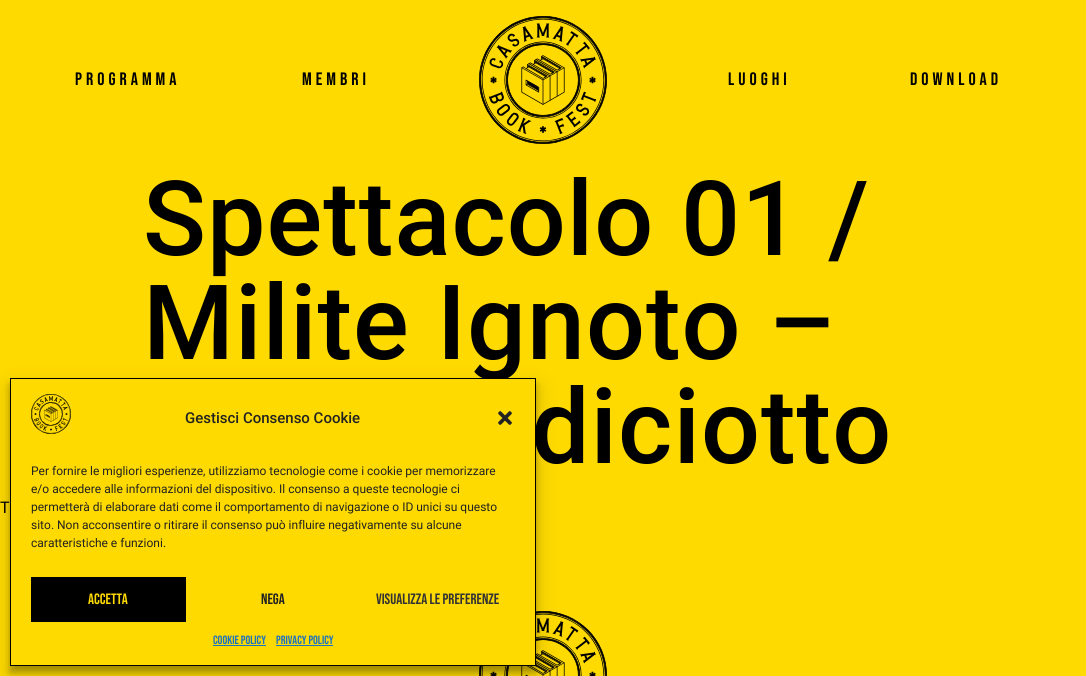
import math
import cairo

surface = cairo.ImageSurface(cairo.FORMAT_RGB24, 1086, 676)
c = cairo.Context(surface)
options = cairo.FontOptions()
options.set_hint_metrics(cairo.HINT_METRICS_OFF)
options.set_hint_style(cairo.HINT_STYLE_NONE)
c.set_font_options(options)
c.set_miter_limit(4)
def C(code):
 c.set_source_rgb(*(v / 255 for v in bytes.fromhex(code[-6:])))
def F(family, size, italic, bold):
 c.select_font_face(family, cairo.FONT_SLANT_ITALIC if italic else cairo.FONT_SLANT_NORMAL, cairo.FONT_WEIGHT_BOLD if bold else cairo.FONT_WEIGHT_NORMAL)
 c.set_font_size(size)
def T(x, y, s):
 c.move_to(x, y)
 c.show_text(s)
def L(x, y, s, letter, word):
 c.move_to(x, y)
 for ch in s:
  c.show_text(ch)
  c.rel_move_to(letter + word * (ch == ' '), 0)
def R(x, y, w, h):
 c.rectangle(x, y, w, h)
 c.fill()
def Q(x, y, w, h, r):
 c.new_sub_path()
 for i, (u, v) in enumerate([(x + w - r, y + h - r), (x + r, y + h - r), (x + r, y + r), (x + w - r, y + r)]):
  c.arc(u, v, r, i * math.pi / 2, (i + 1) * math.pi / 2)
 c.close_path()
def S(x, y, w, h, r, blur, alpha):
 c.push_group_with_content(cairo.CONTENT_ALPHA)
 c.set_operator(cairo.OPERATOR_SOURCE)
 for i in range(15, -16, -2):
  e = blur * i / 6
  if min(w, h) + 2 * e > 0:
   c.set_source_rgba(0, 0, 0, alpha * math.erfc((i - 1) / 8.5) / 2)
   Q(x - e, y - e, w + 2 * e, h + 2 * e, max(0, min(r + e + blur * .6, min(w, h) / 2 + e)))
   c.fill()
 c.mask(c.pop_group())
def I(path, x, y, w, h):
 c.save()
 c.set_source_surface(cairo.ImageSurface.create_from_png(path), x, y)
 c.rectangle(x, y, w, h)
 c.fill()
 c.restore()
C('feda00')
c.paint()
F('Bebas Neue',18,0,0)
C('000000')
L(75,85,'Programma',4,0)
L(302,85,'Membri',4,0)
I('1.png',479,16,128,128)
L(728,85,'Luoghi',4,0)
L(910,85,'Download',4,0)
F('Roboto Medium',104,0,0)
L(143,255,'Spettacolo 01 /',1,0)
L(143,359,'Milite Ignoto –',1,0)
L(531,463,'diciotto',1,0)
F('Roboto',16,0,0)
T(0,513,'T')
I('4.png',479,611,128,65)
C('000000')
S(10,384,526,288,0,3,.23)
S(10,388,526,288,0,10,.19)
C('feda00')
c.rectangle(10.5,378.5,525,287)
c.fill_preserve()
C('000000')
c.set_line_width(1)
c.stroke()
I('2.png',31,394,40,40)
F('Roboto Medium',15,0,0)
C('222222')
T(185,423,'Gestisci Consenso Cookie')
I('3.png',498,411,14,14)
F('Roboto',12,0,0)
T(31,475,'Per fornire le migliori esperienze, utilizziamo tecnologie come i cookie per memorizzare')
T(31,493,'e/o accedere alle informazioni del dispositivo. Il consenso a queste tecnologie ci')
T(31,511,'permetterà di elaborare dati come il comportamento di navigazione o ID unici su questo')
T(31,529,'sito. Non acconsentire o ritirare il consenso può influire negativamente su alcune')
T(31,547,'caratteristiche e funzioni.')
C('000000')
R(31,577,155,45)
F('Bebas Neue',15,0,0)
C('feda00')
T(88,604,'Accetta')
C('222222')
T(261,604,'Nega')
C('333333')
T(376,604,'Visualizza le preferenze')
F('Bebas Neue',12,0,0)
C('1e73be')
T(213,644,'Cookie Policy')
R(213,645,53,1)
T(276,644,'Privacy Policy')
R(276,645,57,1)
surface.write_to_png('o.png')
